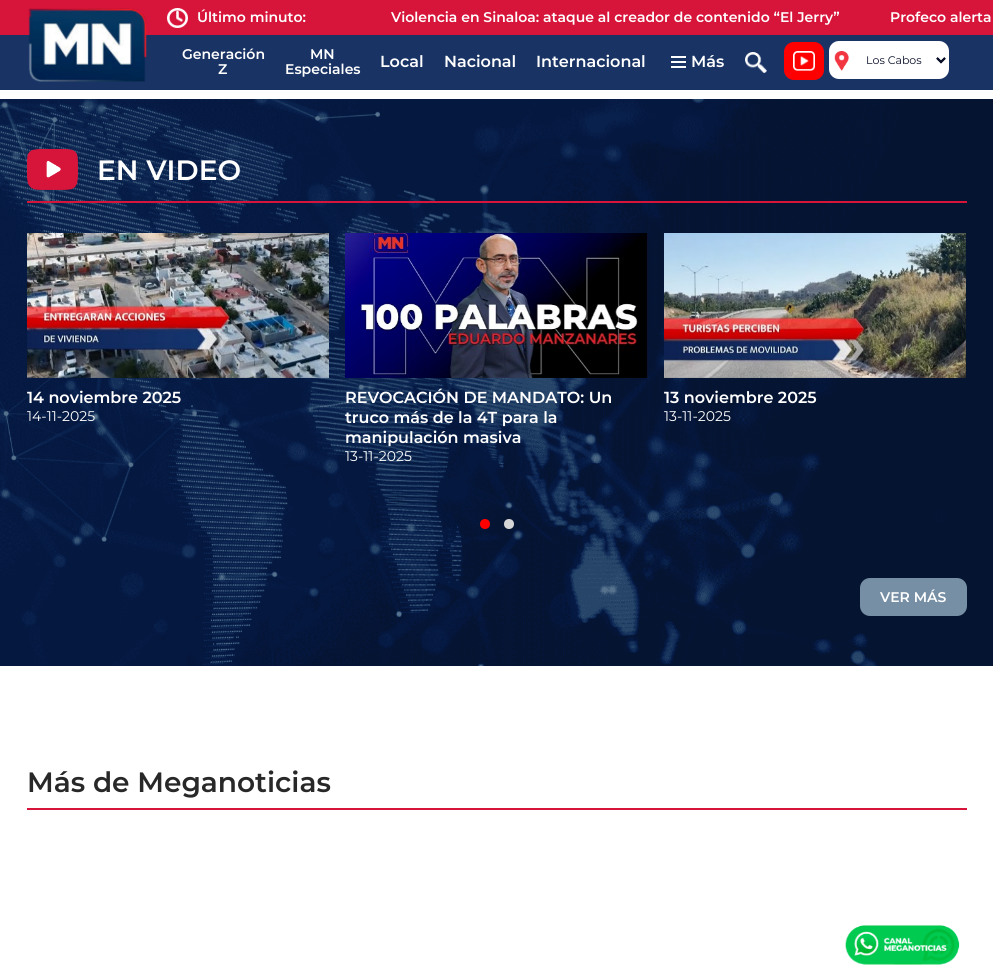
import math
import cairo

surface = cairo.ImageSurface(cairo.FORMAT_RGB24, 993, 970)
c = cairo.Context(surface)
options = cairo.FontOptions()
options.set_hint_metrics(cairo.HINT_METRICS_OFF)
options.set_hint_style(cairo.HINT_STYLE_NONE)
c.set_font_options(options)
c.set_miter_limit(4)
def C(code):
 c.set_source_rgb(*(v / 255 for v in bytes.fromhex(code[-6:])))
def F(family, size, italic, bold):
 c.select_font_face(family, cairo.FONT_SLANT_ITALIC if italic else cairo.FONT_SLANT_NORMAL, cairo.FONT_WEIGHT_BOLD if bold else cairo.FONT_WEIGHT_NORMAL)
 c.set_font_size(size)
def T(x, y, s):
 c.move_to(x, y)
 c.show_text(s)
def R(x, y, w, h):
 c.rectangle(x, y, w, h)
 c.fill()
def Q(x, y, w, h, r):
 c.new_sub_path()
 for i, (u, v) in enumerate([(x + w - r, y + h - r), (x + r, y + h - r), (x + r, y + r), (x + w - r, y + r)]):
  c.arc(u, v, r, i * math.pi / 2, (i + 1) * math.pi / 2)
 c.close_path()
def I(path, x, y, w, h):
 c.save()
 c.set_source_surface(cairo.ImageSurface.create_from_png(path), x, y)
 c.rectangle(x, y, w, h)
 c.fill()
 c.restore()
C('01193a')
c.paint()
I('1.png',0,99,993,567)
C('d7143a')
R(0,0,993,35)
I('2.png',167,8,21,20)
F('Montserrat SemiBold',14,0,0)
C('ffffff')
T(197,22,'Último minuto:')
T(391,22,'Violencia en Sinaloa: ataque al creador de contenido “El Jerry”')
T(890,22,'Profeco alerta')
C('183364')
R(0,35,993,55)
I('3.png',28,8,119,74)
C('ffffff')
T(182,59,'Generación')
T(218,74,'Z')
T(310,59,'MN')
T(285,74,'Especiales')
F('Montserrat SemiBold',16,0,0)
T(380,67,'Local')
T(444,67,'Nacional')
T(536,67,'Internacional')
R(671,56,15,2)
R(671,61,15,2)
R(671,66,15,2)
T(691,67,'Más')
I('4.png',745,52,22,21)
C('ff0000')
Q(784,42,40,38,10)
c.fill()
I('5.png',793,51,22,20)
C('ffffff')
Q(829,41,120,38,10)
c.fill()
I('6.png',834,51,112,20)
c.new_path()
c.move_to(937,58)
c.line_to(941,62)
c.line_to(945,58)
C('0a1028')
c.stroke()
F('Montserrat',11,0,0)
T(866,64,'Los Cabos')
C('ffffff')
R(0,90,993,9)
I('7.png',27,149,51,41)
F('Montserrat SemiBold',28,0,0)
T(97,180,'EN VIDEO')
C('d7143a')
R(27,201,940,2)
I('8.png',27,233,302,145)
c.save()
c.rectangle(27,233,940,271)
c.clip()
F('Montserrat SemiBold',16,0,0)
C('ffffff')
T(27,403,'14 noviembre 2025')
c.restore()
F('Montserrat',14,0,0)
C('ffffff')
T(27,421,'14-11-2025')
I('9.png',345,233,303,145)
F('Montserrat SemiBold',16,0,0)
T(345,403,'REVOCACIÓN DE MANDATO: Un')
T(345,423,'truco más de la 4T para la')
T(345,443,'manipulación masiva')
F('Montserrat',14,0,0)
T(345,461,'13-11-2025')
I('10.png',664,233,302,145)
F('Montserrat SemiBold',16,0,0)
T(664,403,'13 noviembre 2025')
F('Montserrat',14,0,0)
T(664,421,'13-11-2025')
C('ff0000')
c.new_path()
c.arc(485,524,5,0,2 * math.pi)
c.fill()
C('d6d6d6')
c.arc(509,524,5,0,2 * math.pi)
c.fill()
C('768fa4')
Q(860,578,107,38,10)
c.fill()
F('Montserrat SemiBold',14,0,0)
C('ffffff')
T(880,602,'VER MÁS')
R(0,666,993,304)
F('Montserrat SemiBold',28,0,0)
C('282828')
T(27,792,'Más de Meganoticias')
C('d7143a')
R(27,808,940,2)
I('11.png',845,925,115,40)
surface.write_to_png('o.png')
